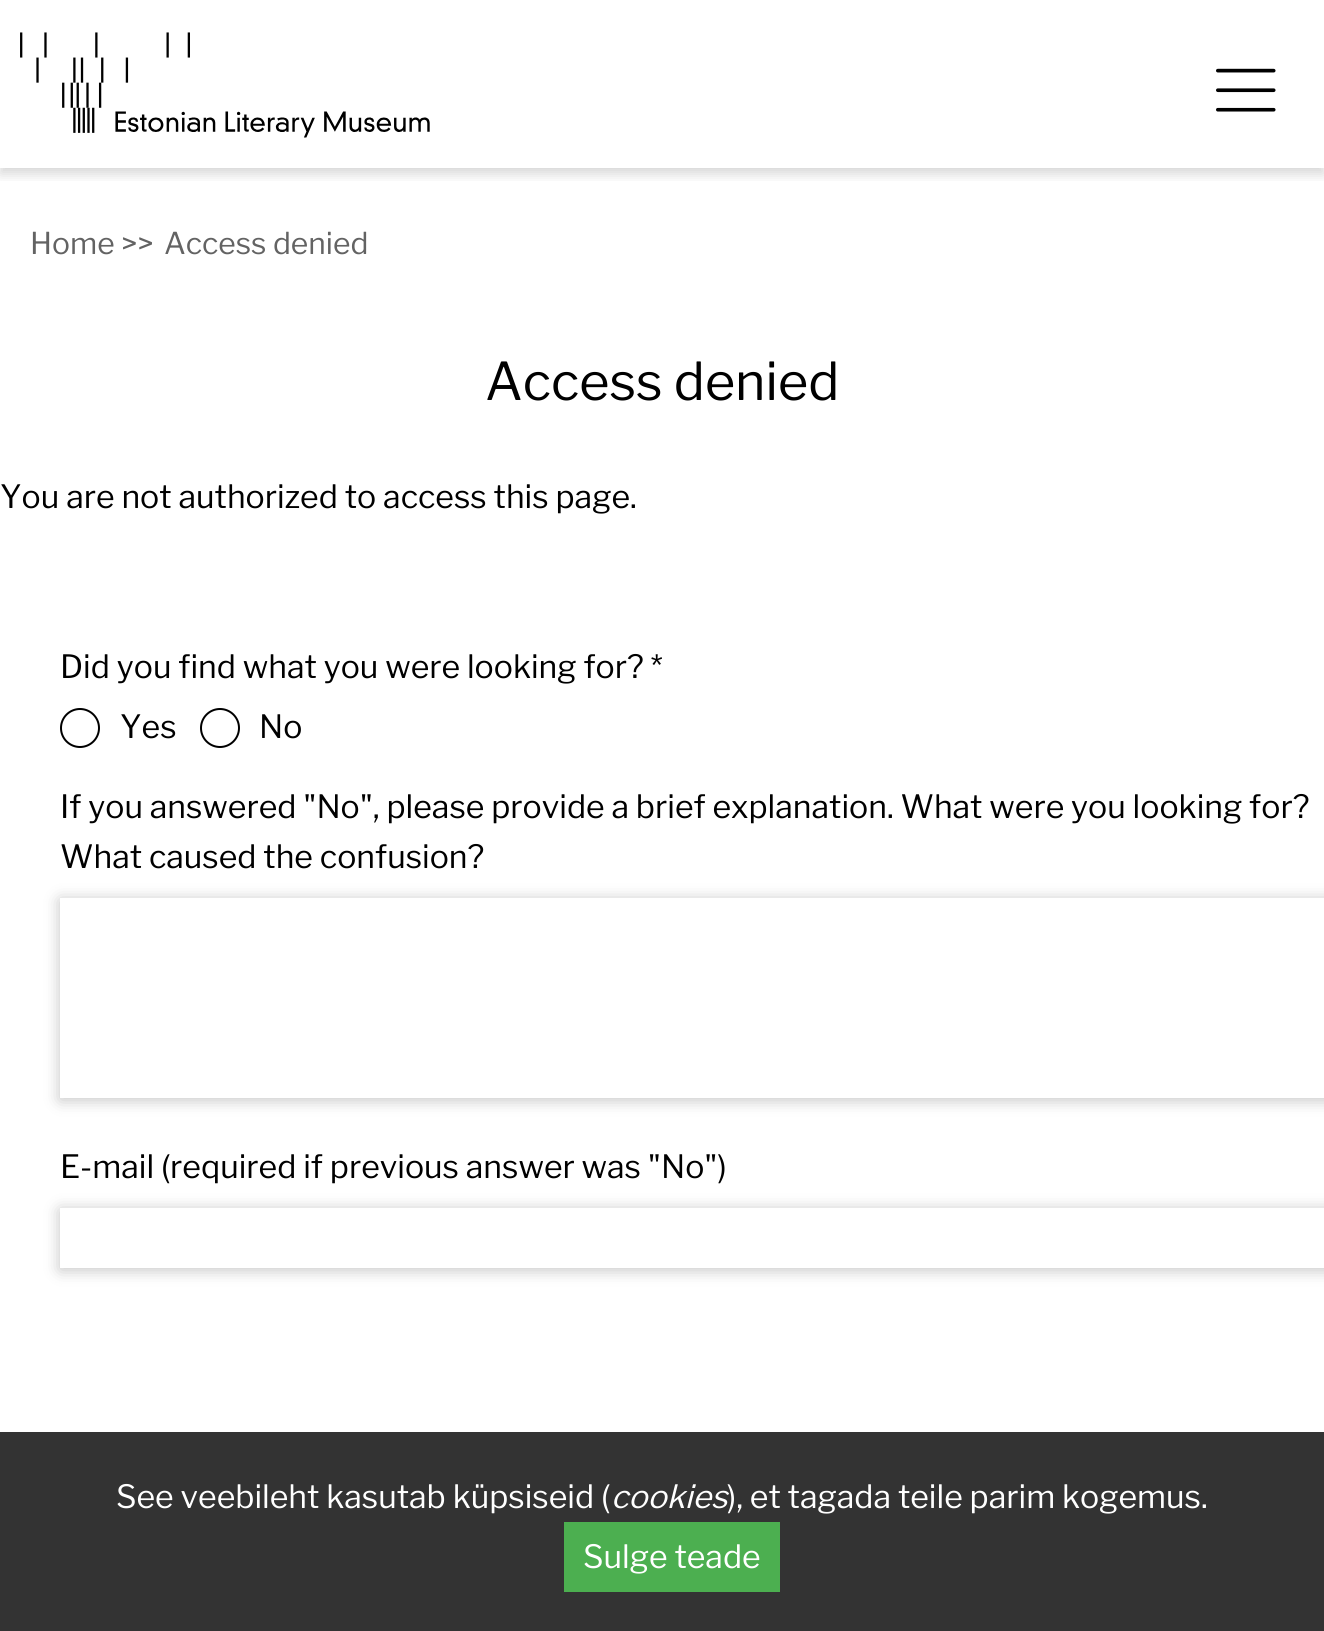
import math
import cairo

surface = cairo.ImageSurface(cairo.FORMAT_RGB24, 1324, 1631)
c = cairo.Context(surface)
options = cairo.FontOptions()
options.set_hint_metrics(cairo.HINT_METRICS_OFF)
options.set_hint_style(cairo.HINT_STYLE_NONE)
c.set_font_options(options)
c.set_miter_limit(4)
def C(code):
 c.set_source_rgb(*(v / 255 for v in bytes.fromhex(code[-6:])))
def F(family, size, italic, bold):
 c.select_font_face(family, cairo.FONT_SLANT_ITALIC if italic else cairo.FONT_SLANT_NORMAL, cairo.FONT_WEIGHT_BOLD if bold else cairo.FONT_WEIGHT_NORMAL)
 c.set_font_size(size)
def T(x, y, s):
 c.move_to(x, y)
 c.show_text(s)
def R(x, y, w, h):
 c.rectangle(x, y, w, h)
 c.fill()
def Q(x, y, w, h, r):
 c.new_sub_path()
 for i, (u, v) in enumerate([(x + w - r, y + h - r), (x + r, y + h - r), (x + r, y + r), (x + w - r, y + r)]):
  c.arc(u, v, r, i * math.pi / 2, (i + 1) * math.pi / 2)
 c.close_path()
def S(x, y, w, h, r, blur, alpha):
 c.push_group_with_content(cairo.CONTENT_ALPHA)
 c.set_operator(cairo.OPERATOR_SOURCE)
 for i in range(15, -16, -2):
  e = blur * i / 6
  if min(w, h) + 2 * e > 0:
   c.set_source_rgba(0, 0, 0, alpha * math.erfc((i - 1) / 8.5) / 2)
   Q(x - e, y - e, w + 2 * e, h + 2 * e, max(0, min(r + e + blur * .6, min(w, h) / 2 + e)))
   c.fill()
 c.mask(c.pop_group())
def I(path, x, y, w, h):
 c.save()
 c.set_source_surface(cairo.ImageSurface.create_from_png(path), x, y)
 c.rectangle(x, y, w, h)
 c.fill()
 c.restore()
C('ffffff')
c.paint()
c.save()
c.rectangle(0,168,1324,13)
c.clip()
C('000000')
S(0,6,1324,168,0,6,.16)
c.restore()
I('1.png',20,32,410,106)
I('2.png',1216,68,60,44)
F('Libre Franklin',30,0,0)
C('636363')
T(30,254,'Home >>')
T(164,254,'Access denied')
F('Libre Franklin',52,0,0)
C('000000')
T(485,400,'Access denied')
F('Libre Franklin',32,0,0)
T(0,508,'You are not authorized to access this page.')
T(60,678,'Did you find what you were looking for? *')
c.new_path()
c.arc(80,728,19,0,2 * math.pi)
c.stroke()
T(120,738,'Yes')
c.new_path()
c.arc(220,728,19,0,2 * math.pi)
c.stroke()
T(259,738,'No')
T(60,818,'If you answered "No", please provide a brief explanation. What were you looking for?')
T(60,868,'What caused the confusion?')
c.save()
c.set_fill_rule(cairo.FILL_RULE_EVEN_ODD)
c.new_path()
c.move_to(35,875)
c.line_to(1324,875)
c.line_to(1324,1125)
c.line_to(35,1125)
c.close_path()
c.move_to(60,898)
c.line_to(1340,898)
c.line_to(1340,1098)
c.line_to(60,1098)
c.close_path()
c.clip()
C('000000')
S(60,900,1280,200,0,8,.24)
c.restore()
T(60,1178,'E-mail (required if previous answer was "No")')
c.save()
c.set_fill_rule(cairo.FILL_RULE_EVEN_ODD)
c.new_path()
c.move_to(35,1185)
c.line_to(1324,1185)
c.line_to(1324,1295)
c.line_to(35,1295)
c.close_path()
c.move_to(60,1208)
c.line_to(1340,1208)
c.line_to(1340,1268)
c.line_to(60,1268)
c.close_path()
c.clip()
C('000000')
S(60,1210,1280,60,0,8,.24)
c.restore()
C('333333')
R(0,1432,1324,199)
C('ffffff')
T(116,1508,'See veebileht kasutab küpsiseid (')
F('Libre Franklin',32,1,0)
T(611,1508,'cookies')
F('Libre Franklin',32,0,0)
T(727,1508,'), et tagada teile parim kogemus.')
C('4caf50')
R(564,1522,216,70)
C('ffffff')
T(583,1568,'Sulge teade')
surface.write_to_png('o.png')
